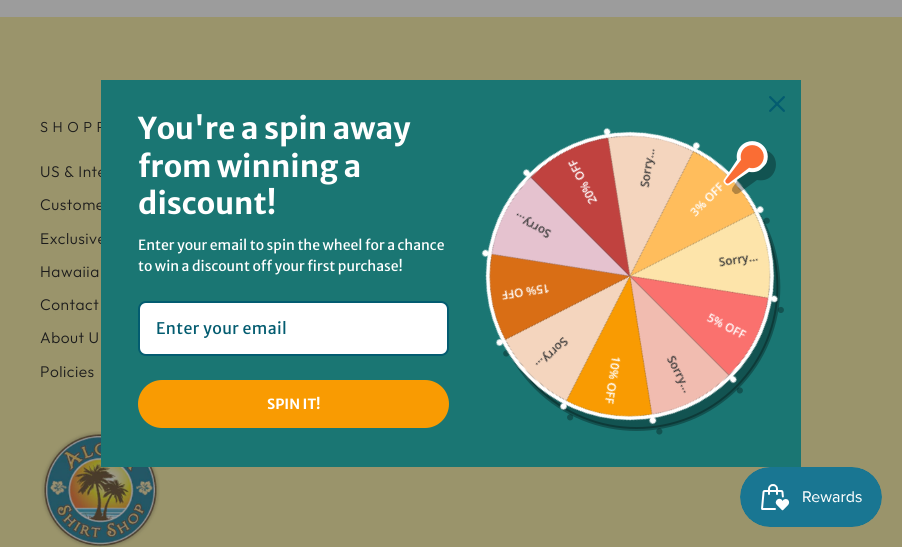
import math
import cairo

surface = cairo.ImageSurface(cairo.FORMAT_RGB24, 902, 547)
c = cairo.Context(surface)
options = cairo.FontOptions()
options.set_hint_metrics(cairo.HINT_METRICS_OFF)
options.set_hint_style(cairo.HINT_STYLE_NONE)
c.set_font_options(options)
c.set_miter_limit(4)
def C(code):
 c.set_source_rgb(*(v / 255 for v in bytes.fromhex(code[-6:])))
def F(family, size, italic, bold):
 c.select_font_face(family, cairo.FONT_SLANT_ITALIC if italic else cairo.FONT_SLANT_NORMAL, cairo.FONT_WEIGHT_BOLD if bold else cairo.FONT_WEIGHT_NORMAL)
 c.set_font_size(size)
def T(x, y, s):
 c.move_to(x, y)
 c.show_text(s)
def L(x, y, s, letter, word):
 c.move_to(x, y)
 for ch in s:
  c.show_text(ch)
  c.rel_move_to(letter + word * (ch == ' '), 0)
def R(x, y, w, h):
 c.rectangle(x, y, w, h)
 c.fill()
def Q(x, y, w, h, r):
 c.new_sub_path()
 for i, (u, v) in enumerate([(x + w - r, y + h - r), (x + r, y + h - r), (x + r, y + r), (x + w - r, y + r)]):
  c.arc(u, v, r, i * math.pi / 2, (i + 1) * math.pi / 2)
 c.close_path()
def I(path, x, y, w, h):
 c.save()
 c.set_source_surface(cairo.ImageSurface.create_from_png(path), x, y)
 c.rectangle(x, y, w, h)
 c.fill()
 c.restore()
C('9c9c9c')
c.paint()
C('9a946b')
R(0,17,902,530)
F('Outfit Light',14.5,0,0)
C('1c1c1c')
L(40,132,'SHOPP',4.5,0)
F('Outfit Light',15.5,0,0)
L(40,177,'US & Inte',.5,0)
L(40,210,'Custome',.5,0)
L(40,244,'Exclusive',.5,0)
L(40,277,'Hawaiia',.5,0)
L(40,310,'Contact',.5,0)
L(40,343,'About U',.5,0)
L(40,377,'Policies',.5,0)
I('1.png',41,431,119,116)
C('1a7673')
R(101,80,700,387)
I('2.png',769,96,16,16)
F('Merriweather Sans',30,0,1)
C('ffffff')
T(138,139,'You\'re a spin away')
T(138,177,'from winning a')
T(138,214,'discount!')
F('Merriweather Sans',14,0,0)
T(138,250,'Enter your email to spin the wheel for a chance')
T(138,271,'to win a discount off your first purchase!')
Q(139,302,309,53,7)
c.fill_preserve()
C('035c70')
c.stroke()
F('Merriweather Sans',16,0,0)
L(156,334,'Enter your email',.4,0)
C('f99b02')
Q(138,380,311,48,24)
c.fill()
F('Merriweather Sans',14,0,1)
C('ffffff')
T(267,409,'SPIN IT!')
I('5.png',501,153,283,282)
I('3.png',481,127,298,298)
c.set_source_rgba(0,0,0,0.3)
c.new_path()
c.move_to(748,156)
c.curve_to(752,152,757,149,763,150)
c.curve_to(783,152,779,184,757,180)
c.line_to(739,193)
c.curve_to(738,194,736,194,735,194)
c.line_to(732,191)
c.curve_to(732,190,732,188,733,187)
c.line_to(746,168)
c.curve_to(745,163,746,159,748,156)
c.close_path()
c.fill()
I('4.png',723,141,45,45)
I('6.png',740,467,142,60)
surface.write_to_png('o.png')
